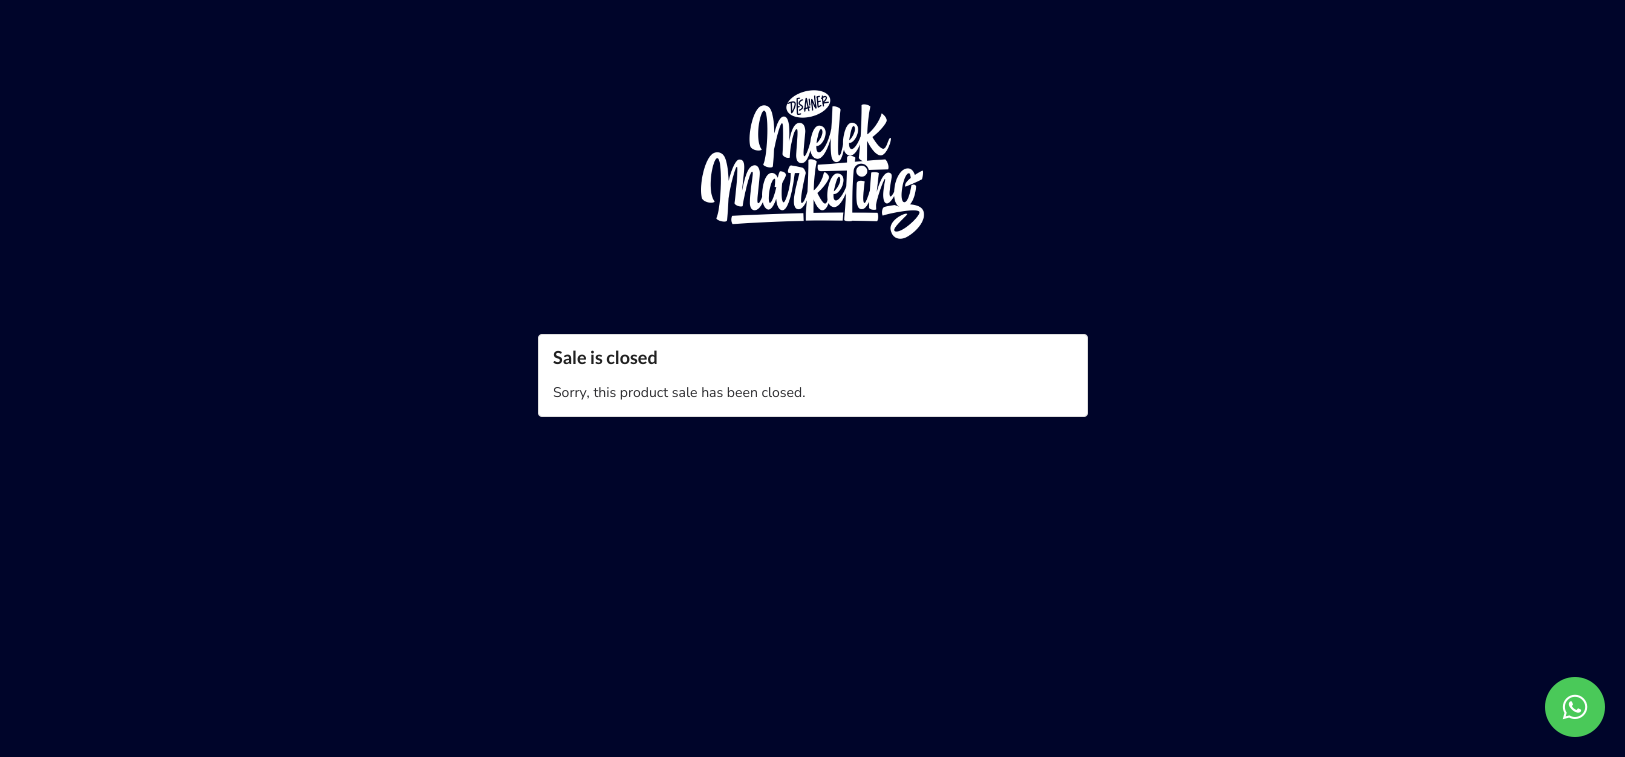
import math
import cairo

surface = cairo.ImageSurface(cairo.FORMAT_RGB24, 1625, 757)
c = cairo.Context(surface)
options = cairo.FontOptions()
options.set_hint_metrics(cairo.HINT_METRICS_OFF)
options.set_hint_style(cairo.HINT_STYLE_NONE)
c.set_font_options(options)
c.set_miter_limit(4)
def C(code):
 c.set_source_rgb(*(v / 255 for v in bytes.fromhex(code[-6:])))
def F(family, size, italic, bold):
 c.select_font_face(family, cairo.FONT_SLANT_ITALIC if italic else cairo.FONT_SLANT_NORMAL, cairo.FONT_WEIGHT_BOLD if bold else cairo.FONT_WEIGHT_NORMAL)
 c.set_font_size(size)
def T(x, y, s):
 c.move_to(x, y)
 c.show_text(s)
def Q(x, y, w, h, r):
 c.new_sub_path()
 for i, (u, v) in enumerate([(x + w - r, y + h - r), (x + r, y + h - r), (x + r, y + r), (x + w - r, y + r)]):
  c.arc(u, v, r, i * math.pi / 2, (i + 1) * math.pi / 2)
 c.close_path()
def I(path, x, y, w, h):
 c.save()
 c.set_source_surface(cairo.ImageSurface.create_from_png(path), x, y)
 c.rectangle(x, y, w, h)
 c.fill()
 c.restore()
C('00052a')
c.paint()
I('1.png',701,90,224,149)
C('ffffff')
Q(538,334,550,83,4)
c.fill()
Q(538.5,334.5,549,82,3.5)
c.set_source_rgba(0.133,0.141,0.149,0.15)
c.set_line_width(1)
c.stroke()
F('Lato',18,0,1)
C('212121')
T(553,364,'Sale is closed')
F('Nunito Sans ExtraLight',14,0,0)
C('2e2e31')
T(553,397,'Sorry, this product sale has been closed.')
C('4ac959')
c.new_path()
c.arc(1575,707,30,0,2 * math.pi)
c.fill()
I('2.png',1562,694,26,26)
surface.write_to_png('o.png')
